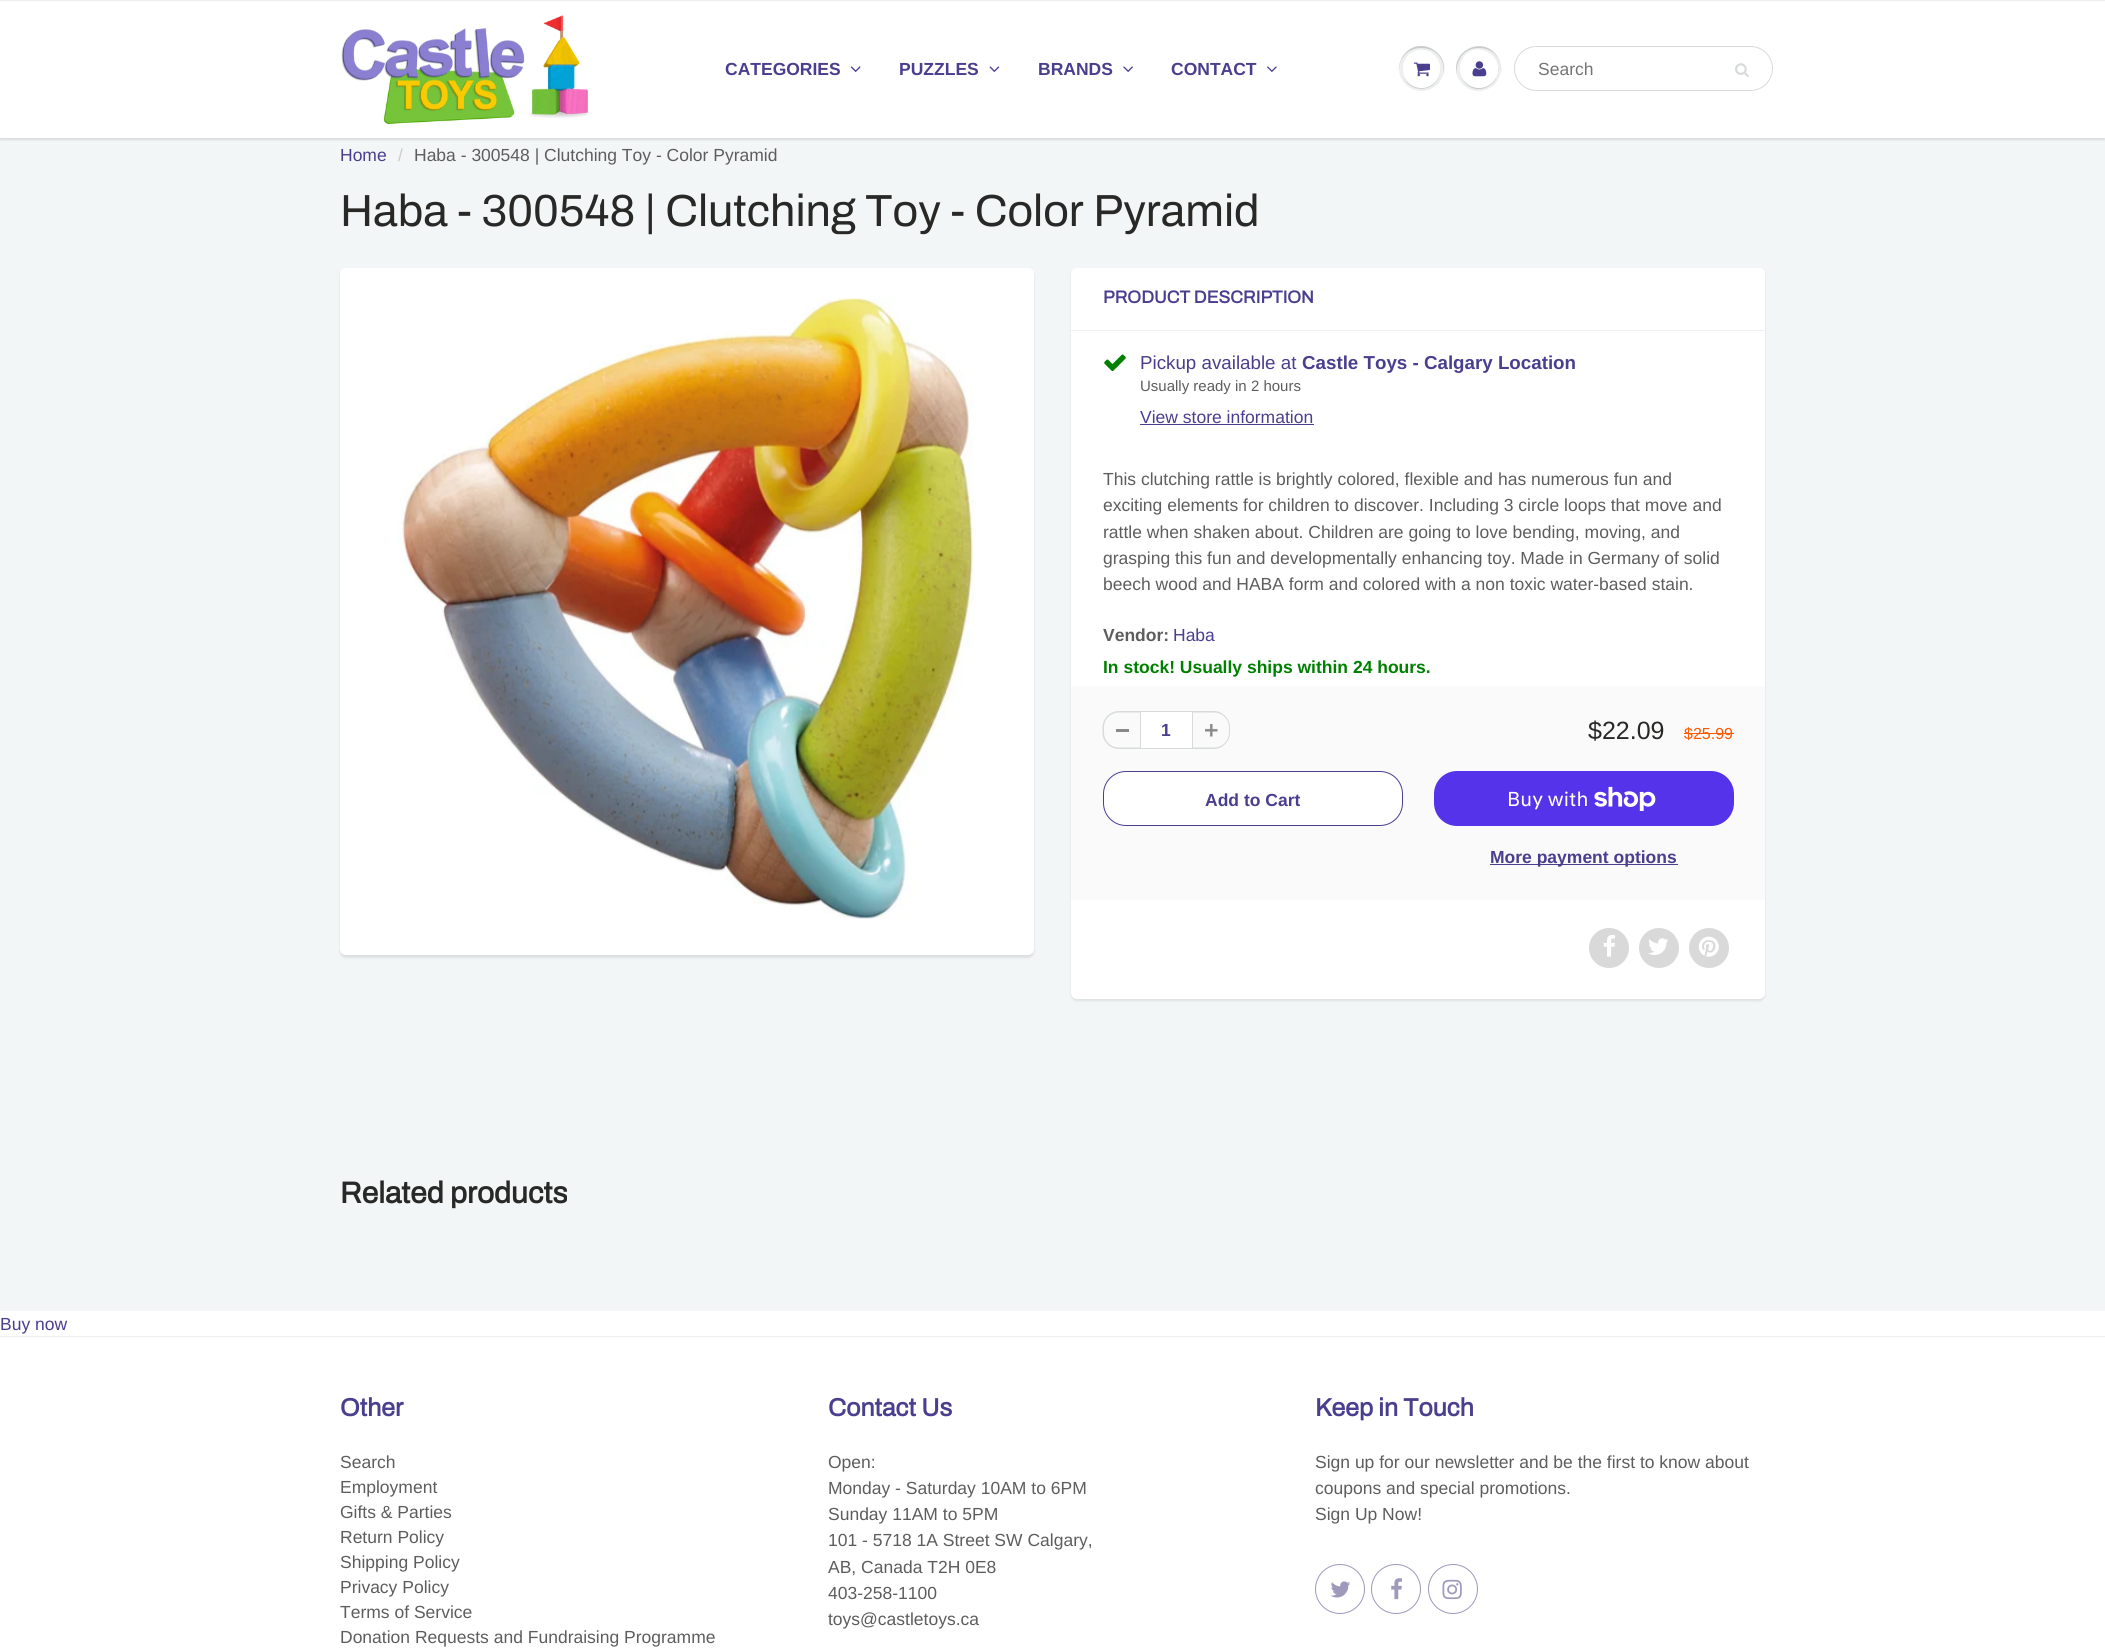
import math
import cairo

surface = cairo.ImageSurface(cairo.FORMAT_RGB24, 2105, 1652)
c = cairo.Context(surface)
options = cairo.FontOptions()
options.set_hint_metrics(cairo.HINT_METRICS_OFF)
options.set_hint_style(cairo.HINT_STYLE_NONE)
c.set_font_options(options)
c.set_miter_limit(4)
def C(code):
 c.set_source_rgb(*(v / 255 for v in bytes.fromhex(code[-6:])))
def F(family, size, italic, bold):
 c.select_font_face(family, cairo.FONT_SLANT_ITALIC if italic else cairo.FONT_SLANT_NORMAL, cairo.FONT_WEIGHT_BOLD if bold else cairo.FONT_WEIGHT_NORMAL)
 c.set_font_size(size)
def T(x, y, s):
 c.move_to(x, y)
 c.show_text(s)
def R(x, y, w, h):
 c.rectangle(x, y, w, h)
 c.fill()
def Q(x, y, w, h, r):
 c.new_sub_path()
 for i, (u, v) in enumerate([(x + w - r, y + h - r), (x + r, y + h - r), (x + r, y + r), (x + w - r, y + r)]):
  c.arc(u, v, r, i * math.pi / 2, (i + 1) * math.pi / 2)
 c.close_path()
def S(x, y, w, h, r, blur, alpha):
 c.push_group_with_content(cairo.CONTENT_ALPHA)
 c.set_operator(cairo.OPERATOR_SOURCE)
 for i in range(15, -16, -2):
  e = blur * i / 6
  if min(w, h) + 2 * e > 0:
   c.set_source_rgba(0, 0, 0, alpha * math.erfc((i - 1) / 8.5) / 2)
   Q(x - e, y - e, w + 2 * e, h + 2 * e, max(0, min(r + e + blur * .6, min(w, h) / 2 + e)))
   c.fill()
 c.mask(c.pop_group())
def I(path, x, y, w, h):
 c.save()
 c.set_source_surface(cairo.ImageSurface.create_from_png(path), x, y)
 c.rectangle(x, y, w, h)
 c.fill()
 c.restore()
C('ffffff')
c.paint()
C('f3f6f6')
R(0,138,2105,1173)
C('0b191c')
S(0,3,2105,137,0,1,.12)
C('ffffff')
R(0,2,2105,136)
C('ecefef')
R(0,0,2105,1)
I('1.png',341,15,248,109)
F('Liberation Sans',17.5,0,1)
C('4a3e8f')
T(725,75,'CATEGORIES')
I('2.png',850,66,11,6)
T(899,75,'PUZZLES')
I('3.png',989,66,11,6)
T(1038,75,'BRANDS')
I('4.png',1123,66,10,6)
T(1171,75,'CONTACT')
I('5.png',1267,66,10,6)
C('edefef')
c.arc(1421.5,68.5,22.5,0,2 * math.pi)
c.fill()
C('c9cbcb')
c.new_path()
c.move_to(1421,48)
c.curve_to(1439,48,1446,63,1443,76)
c.curve_to(1451,52,1418,34,1403,56)
c.curve_to(1400,61,1398,67,1399,72)
c.curve_to(1398,61,1406,48,1421,48)
c.close_path()
c.fill()
c.new_path()
c.move_to(1440,69)
c.curve_to(1439.5,90,1410,94.5,1403.5,75)
c.curve_to(1408.5,96,1440.5,92.5,1440,69)
c.close_path()
c.fill()
C('ffffff')
Q(1403,50,37,38,18.5)
c.fill()
c.new_path()
c.move_to(1421,51)
c.curve_to(1436,51,1442,64.5,1439,75)
c.curve_to(1440.5,70.5,1440.5,65.5,1438.5,61.5)
c.curve_to(1430.5,42.5,1402.5,48,1403,69.5)
c.curve_to(1403,60.5,1409,51,1421,51)
c.close_path()
c.fill()
I('6.png',1413,62,17,15)
C('edefef')
c.arc(1478.5,68.5,22.5,0,2 * math.pi)
c.fill()
C('c9cbcb')
c.new_path()
c.move_to(1479,48)
c.curve_to(1495,48,1502,61,1501,73)
c.curve_to(1502,67,1500,61,1497,56)
c.curve_to(1483,35,1450,51,1457,75)
c.curve_to(1455,63,1462,48,1479,48)
c.close_path()
c.fill()
c.new_path()
c.move_to(1460,69.5)
c.curve_to(1460,74.5,1462,79.5,1465.5,83.5)
c.curve_to(1480.5,98.5,1505,81,1496.5,62)
c.curve_to(1503,80.5,1480,96.5,1465.5,82)
c.curve_to(1462,79,1460,74,1460,69.5)
c.close_path()
c.fill()
C('ffffff')
c.arc(1479,69,19,0,2 * math.pi)
c.fill()
c.new_path()
c.move_to(1479,51)
c.curve_to(1495,51,1500,68,1495,80)
c.curve_to(1508,59,1477,37,1463,58)
c.curve_to(1460,63,1459,68,1461,73)
c.curve_to(1459,63,1465,51,1479,51)
c.close_path()
c.fill()
I('7.png',1472,61,15,16)
Q(1514.5,46.5,258,44,22)
C('d7dbdb')
c.set_line_width(1)
c.stroke()
F('Liberation Sans',17.5,0,0)
C('757575')
T(1538,75,'Search')
I('8.png',1735,63,14,14)
C('4a3e8f')
T(340,161,'Home')
C('cccccc')
T(398,161,'/')
C('5d5d5d')
T(414,161,'Haba - 300548 | Clutching Toy - Color Pyramid')
F('Archivo',45,0,0)
C('282827')
T(340,226,'Haba - 300548 | Clutching Toy - Color Pyramid')
C('0b191c')
S(340,270,694,688,6,1,.1)
C('ffffff')
Q(340,268,694,687,6)
c.fill()
I('9.png',397,298,577,621)
C('0b191c')
S(1071,270,694,731,6,1,.1)
C('ffffff')
Q(1071,268,694,731,6)
c.fill()
C('efefef')
R(1071,330,694,1)
F('Archivo',17.5,0,1)
C('4a3e8f')
T(1103,303,'PRODUCT DESCRIPTION')
I('10.png',1104,354,22,17)
F('Liberation Sans',18.75,0,0)
T(1140,369,'Pickup available at')
F('Liberation Sans',18.75,0,1)
T(1302,369,'Castle Toys - Calgary Location')
F('Liberation Sans',15,0,0)
C('5d5d5d')
T(1140,391,'Usually ready in 2 hours')
F('Liberation Sans',17.5,0,0)
C('4a3e8f')
T(1140,423,'View store information')
R(1140,424,174,1)
C('5d5d5d')
T(1103,485,'This clutching rattle is brightly colored, flexible and has numerous fun and')
T(1103,511,'exciting elements for children to discover. Including 3 circle loops that move and')
T(1103,538,'rattle when shaken about. Children are going to love bending, moving, and')
T(1103,564,'grasping this fun and developmentally enhancing toy. Made in Germany of solid')
T(1103,590,'beech wood and HABA form and colored with a non toxic water-based stain.')
F('Liberation Sans',17.5,0,1)
T(1103,641,'Vendor:')
F('Liberation Sans',17.5,0,0)
C('4a3e8f')
T(1173,641,'Haba')
F('Liberation Sans',17.5,0,1)
C('008000')
T(1103,673,'In stock! Usually ships within 24 hours.')
C('fafafa')
R(1071,686,694,214)
C('898989')
R(1116,729,13,3)
C('d7dbdb')
c.set_fill_rule(cairo.FILL_RULE_EVEN_ODD)
c.new_path()
c.move_to(1119,711)
c.line_to(1140,711)
c.line_to(1140,749)
c.line_to(1119,749)
c.curve_to(1110,749,1102.5,741.5,1102.5,732.5)
c.line_to(1102.5,727.5)
c.curve_to(1102.5,718.5,1110,711,1119,711)
c.close_path()
c.move_to(1119,712.5)
c.line_to(1140,712.5)
c.line_to(1140,747.5)
c.line_to(1119,747.5)
c.curve_to(1110.5,747.5,1104,741,1104,732.5)
c.line_to(1104,727.5)
c.curve_to(1104,719,1110.5,712.5,1119,712.5)
c.close_path()
c.fill()
C('ffffff')
c.rectangle(1140.5,711.5,52,37)
c.fill_preserve()
C('d7dbdb')
c.stroke()
C('4a3e8f')
T(1161,736,'1')
I('11.png',1205,724,13,13)
C('d7dbdb')
c.new_path()
c.move_to(1192.5,711)
c.line_to(1214,711)
c.curve_to(1222.5,711,1230,718.5,1230,727.5)
c.line_to(1230,732.5)
c.curve_to(1230,741.5,1222.5,749,1214,749)
c.line_to(1192.5,749)
c.close_path()
c.move_to(1192.5,712.5)
c.line_to(1214,712.5)
c.curve_to(1222,712.5,1229,719,1229,727.5)
c.line_to(1229,732.5)
c.curve_to(1229,741,1222,747.5,1214,747.5)
c.line_to(1192.5,747.5)
c.close_path()
c.fill()
F('Liberation Sans',25,0,0)
C('282827')
T(1588,739,'$22.09')
F('Liberation Sans',16,0,0)
C('fb5a00')
T(1684,739,'$25.99')
R(1684,733,50,1)
C('ffffff')
Q(1103.5,771.5,299,54,22.5)
c.fill_preserve()
C('4a3e8f')
c.stroke()
F('Liberation Sans',17.5,0,1)
T(1205,806,'Add to Cart')
C('5433eb')
Q(1434,771,300,55,23)
c.fill()
F('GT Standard',20,0,0)
C('ffffff')
T(1507,806,'Buy with')
I('12.png',1594,786,62,25)
C('4a3e8f')
R(1490,864,188,1)
F('Liberation Sans',17.5,0,1)
T(1490,863,'More payment options')
C('d9d9d9')
c.new_path()
c.arc(1609,948,20,0,2 * math.pi)
c.fill()
I('13.png',1603,935,12,22)
c.arc(1659,948,20,0,2 * math.pi)
c.fill()
I('14.png',1648,938,21,17)
c.arc(1709,948,20,0,2 * math.pi)
c.fill()
I('15.png',1698,936,21,21)
F('Archivo',30,0,1)
C('282827')
T(340,1203,'Related products')
F('Liberation Sans',17.5,0,0)
C('4a3e8f')
T(0,1330,'Buy now')
C('ecefef')
R(0,1336,2105,1)
F('Archivo',25,0,1)
C('4a3e8f')
T(340,1416,'Other')
F('Liberation Sans',17.5,0,0)
C('5d5d5d')
T(340,1468,'Search')
T(340,1493,'Employment')
T(340,1518,'Gifts & Parties')
T(340,1543,'Return Policy')
T(340,1568,'Shipping Policy')
T(340,1593,'Privacy Policy')
T(340,1618,'Terms of Service')
T(340,1643,'Donation Requests and Fundraising Programme')
F('Archivo',25,0,1)
C('4a3e8f')
T(828,1416,'Contact Us')
F('Liberation Sans',17.5,0,0)
C('5d5d5d')
T(828,1468,'Open:')
T(828,1494,'Monday - Saturday 10AM to 6PM')
T(828,1520,'Sunday 11AM to 5PM')
T(828,1546,'101 - 5718 1A Street SW Calgary,')
T(828,1573,'AB, Canada T2H 0E8')
T(828,1599,'403-258-1100')
T(828,1625,'toys@castletoys.ca')
F('Archivo',25,0,1)
C('4a3e8f')
T(1315,1416,'Keep in Touch')
F('Liberation Sans',17.5,0,0)
C('5d5d5d')
T(1315,1468,'Sign up for our newsletter and be the first to know about')
T(1315,1494,'coupons and special promotions.')
T(1315,1520,'Sign Up Now!')
c.new_path()
c.arc(1340,1589,24.5,0,2 * math.pi)
C('9f99bb')
c.stroke()
I('16.png',1330,1581,21,17)
c.arc(1396,1589,24.5,0,2 * math.pi)
c.stroke()
I('17.png',1391,1578,11,22)
c.arc(1453,1589,24.5,0,2 * math.pi)
c.stroke()
I('18.png',1442,1579,20,21)
surface.write_to_png('o.png')
